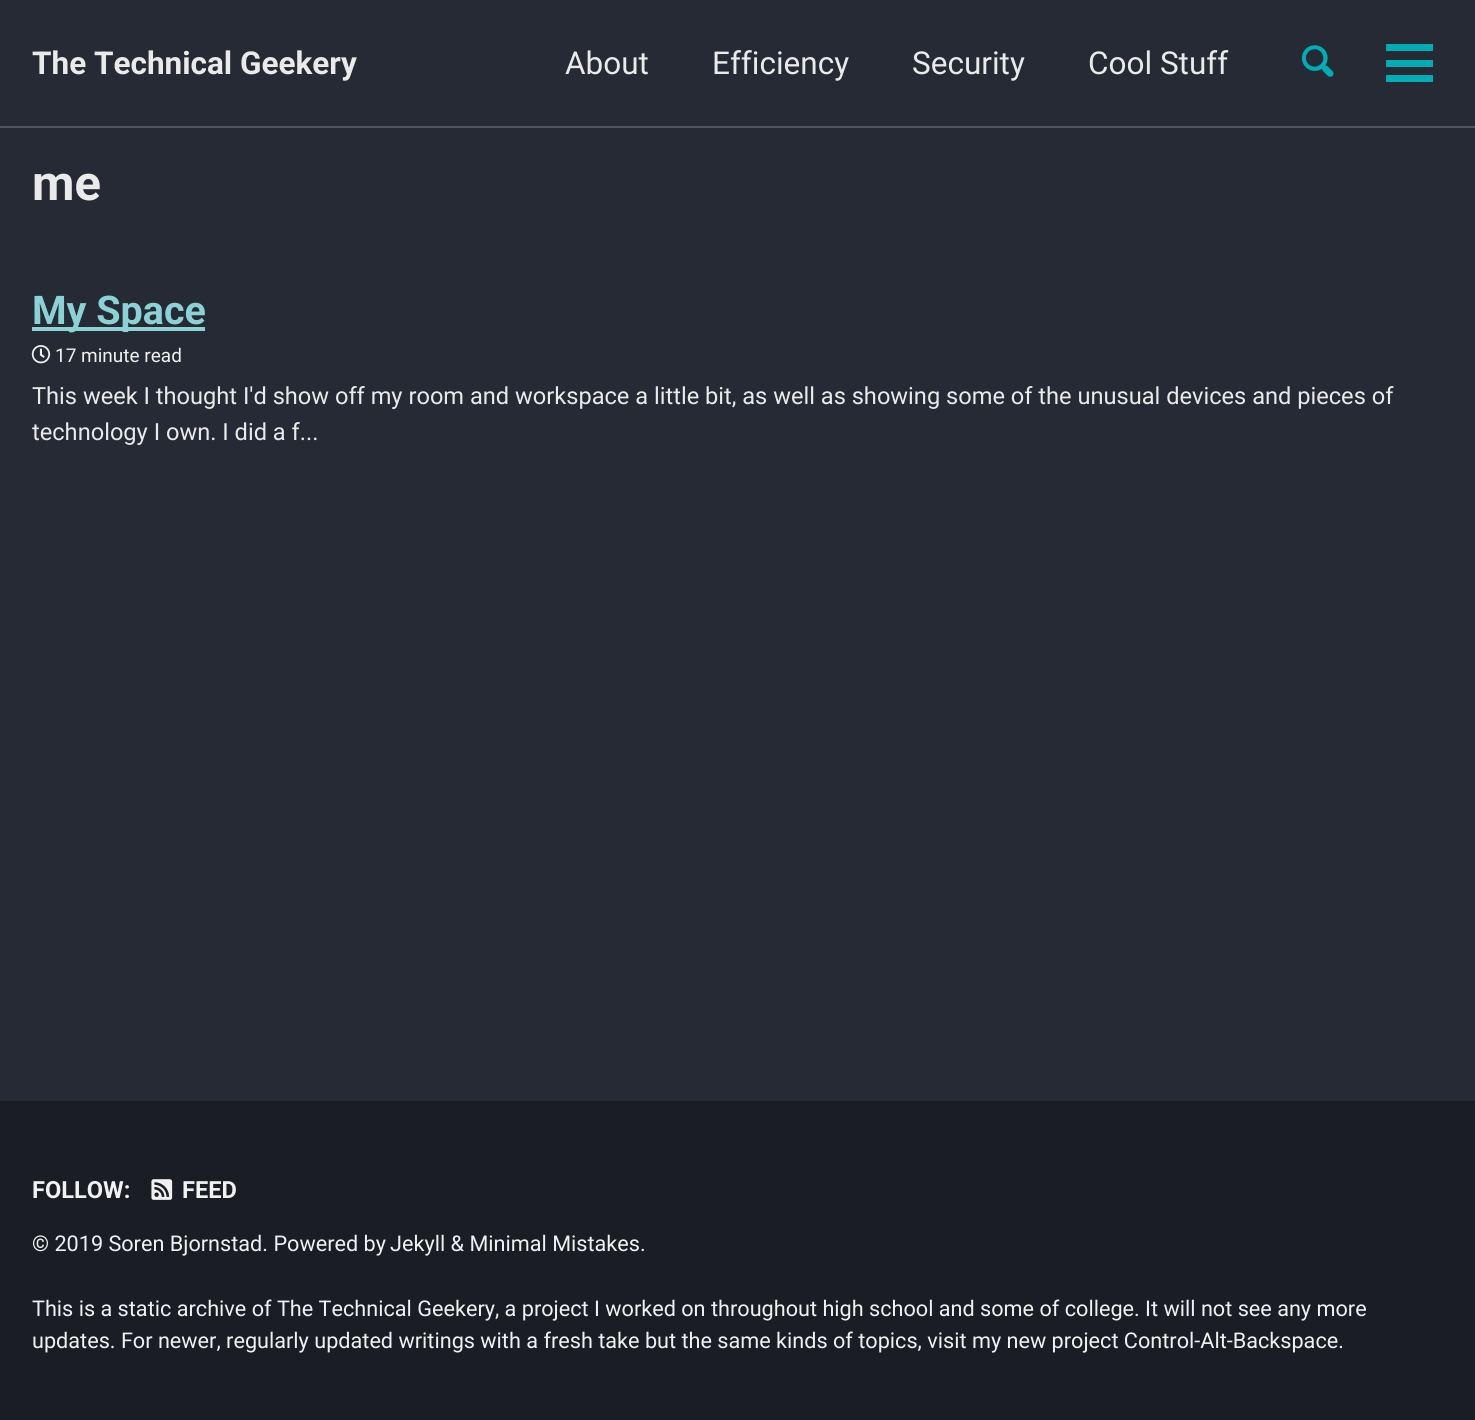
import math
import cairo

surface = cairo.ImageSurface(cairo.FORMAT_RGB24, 1475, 1420)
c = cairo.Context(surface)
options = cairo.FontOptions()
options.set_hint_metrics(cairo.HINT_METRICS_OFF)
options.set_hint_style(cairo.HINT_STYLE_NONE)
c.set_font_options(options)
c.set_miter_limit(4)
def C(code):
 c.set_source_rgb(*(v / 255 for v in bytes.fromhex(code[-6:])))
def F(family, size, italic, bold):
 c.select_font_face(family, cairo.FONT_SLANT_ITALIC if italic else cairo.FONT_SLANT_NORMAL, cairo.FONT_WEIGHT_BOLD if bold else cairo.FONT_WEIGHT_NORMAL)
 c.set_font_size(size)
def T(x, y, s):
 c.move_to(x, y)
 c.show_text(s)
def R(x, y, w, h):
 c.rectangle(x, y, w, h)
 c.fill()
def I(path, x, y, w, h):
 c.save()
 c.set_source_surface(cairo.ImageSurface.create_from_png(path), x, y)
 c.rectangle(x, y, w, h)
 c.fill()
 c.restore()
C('252a34')
c.paint()
C('51555d')
R(0,126,1475,2)
F('Roboto',31.5,0,1)
C('eaeaea')
T(32,74,'The Technical Geekery')
F('Roboto',31.5,0,0)
T(565,74,'About')
T(712,74,'Efficiency')
T(912,74,'Security')
T(1088,74,'Cool Stuff')
I('1.png',1302,45,32,32)
C('00adb5')
R(1386,60,47,7)
R(1386,44,47,7)
R(1386,75,47,7)
F('Roboto',49,0,1)
C('eaeaea')
T(32,200,'me')
C('8cd2d5')
R(32,327,173,4)
F('Roboto',39.5,0,1)
T(32,324,'My Space')
I('2.png',31,345,20,19)
F('Roboto',19,0,0)
C('f1f1f1')
T(55,362,'17 minute read')
F('Roboto',23.62,0,0)
C('eaeaea')
T(32,404,'This week I thought I\'d show off my room and workspace a little bit, as well as showing some of the unusual devices and pieces of')
T(32,440,'technology I own. I did a f...')
C('1a1d24')
R(0,1101,1475,319)
F('Roboto',23.62,0,1)
C('f1f1f1')
T(32,1198,'FOLLOW:')
I('3.png',151,1179,22,21)
T(182,1198,'FEED')
F('Roboto',21.65,0,0)
T(32,1251,'© 2019 Soren Bjornstad. Powered by')
T(390,1251,'Jekyll & Minimal Mistakes.')
T(32,1316,'This is a static archive of The Technical Geekery, a project I worked on throughout high school and some of college. It will not see any more')
T(32,1348,'updates. For newer, regularly updated writings with a fresh take but the same kinds of topics, visit my new project Control-Alt-Backspace.')
surface.write_to_png('o.png')
